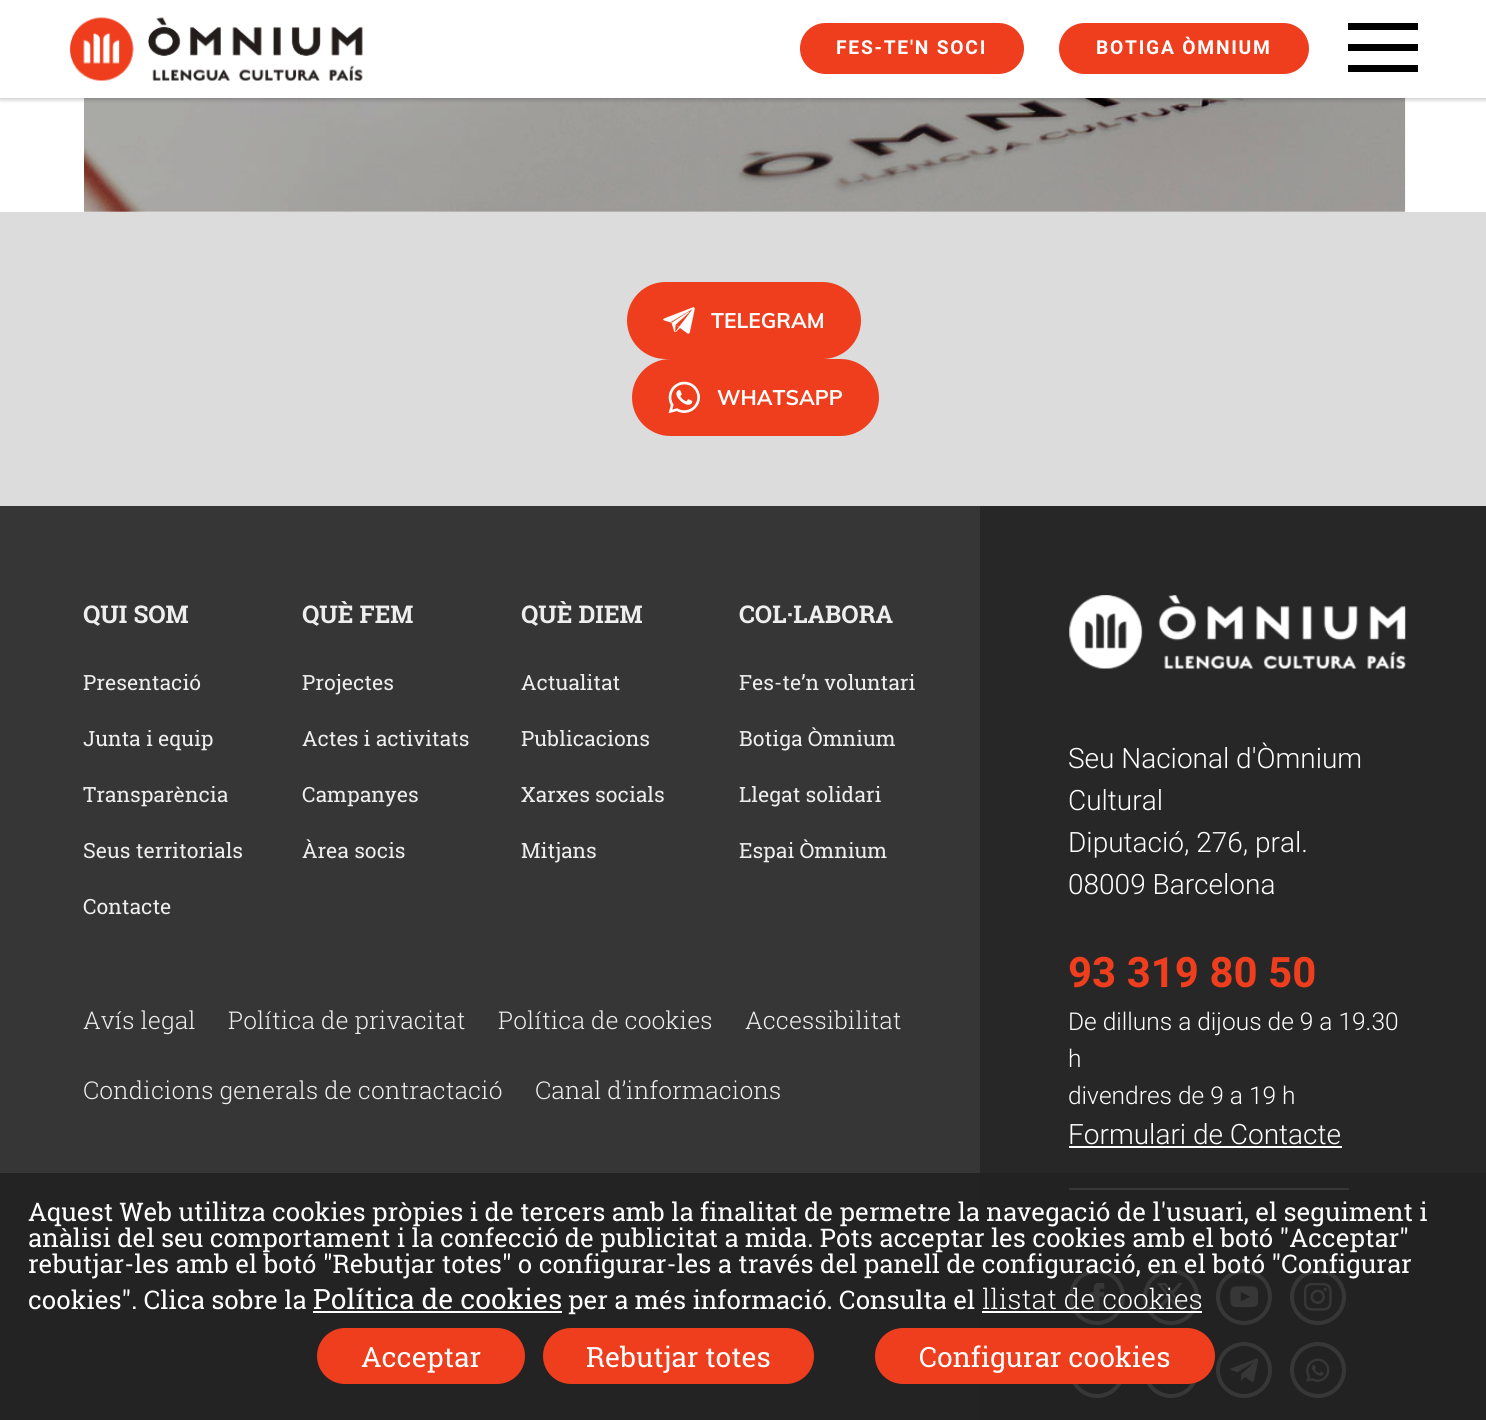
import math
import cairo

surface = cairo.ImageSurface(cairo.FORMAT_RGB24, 1486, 1420)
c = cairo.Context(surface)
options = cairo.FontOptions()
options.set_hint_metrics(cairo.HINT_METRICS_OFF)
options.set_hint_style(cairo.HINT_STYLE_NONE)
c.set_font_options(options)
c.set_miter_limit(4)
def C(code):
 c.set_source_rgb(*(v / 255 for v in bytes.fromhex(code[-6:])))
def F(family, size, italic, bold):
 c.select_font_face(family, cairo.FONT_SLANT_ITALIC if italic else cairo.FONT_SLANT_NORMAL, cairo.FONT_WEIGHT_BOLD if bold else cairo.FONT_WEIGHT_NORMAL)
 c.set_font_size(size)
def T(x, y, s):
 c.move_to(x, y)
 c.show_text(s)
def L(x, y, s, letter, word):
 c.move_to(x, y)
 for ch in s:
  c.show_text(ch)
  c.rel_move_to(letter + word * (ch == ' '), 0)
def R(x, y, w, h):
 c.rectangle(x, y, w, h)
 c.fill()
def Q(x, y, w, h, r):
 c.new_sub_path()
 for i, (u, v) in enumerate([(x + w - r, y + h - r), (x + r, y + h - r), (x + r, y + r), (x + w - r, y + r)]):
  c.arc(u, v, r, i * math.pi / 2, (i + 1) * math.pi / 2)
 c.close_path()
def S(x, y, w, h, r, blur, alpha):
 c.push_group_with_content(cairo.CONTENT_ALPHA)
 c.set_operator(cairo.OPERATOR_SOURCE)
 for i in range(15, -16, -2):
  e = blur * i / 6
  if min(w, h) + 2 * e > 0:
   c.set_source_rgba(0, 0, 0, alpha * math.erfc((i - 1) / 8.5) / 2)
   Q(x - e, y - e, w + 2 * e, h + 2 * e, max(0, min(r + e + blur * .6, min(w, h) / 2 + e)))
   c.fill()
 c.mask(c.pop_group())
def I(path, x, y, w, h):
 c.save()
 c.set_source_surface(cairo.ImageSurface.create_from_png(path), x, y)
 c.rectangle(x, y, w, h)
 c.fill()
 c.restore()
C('ffffff')
c.paint()
I('2.png',84,98,1322,114)
C('000000')
S(0,2,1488,98,0,2,.2)
C('ffffff')
R(0,0,1486,98)
I('1.png',70,17,293,64)
C('ef3e1e')
Q(801,24,222,49,24.5)
c.fill_preserve()
c.stroke()
F('Roboto',19.25,0,1)
C('ffffff')
L(836,54,'FES-TE\'N SOCI',1.75,0)
C('ef3e1e')
Q(1060,24,248,49,24.5)
c.fill_preserve()
c.stroke()
C('ffffff')
L(1096,54,'BOTIGA ÒMNIUM',1.75,0)
C('000000')
R(1348,23,70,7)
R(1348,44,70,7)
R(1348,65,70,7)
C('dcdcdc')
R(0,212,1486,294)
C('ef3e1e')
Q(628,283,232,75,37.5)
c.fill_preserve()
c.stroke()
I('3.png',663,307,32,27)
F('Muli',21,0,1)
C('ffffff')
T(711,328,'TELEGRAM')
C('ef3e1e')
Q(633,360,245,75,37.5)
c.fill_preserve()
c.stroke()
I('4.png',668,381,32,33)
C('ffffff')
T(717,405,'WHATSAPP')
C('363636')
R(0,506,980,914)
C('272727')
R(980,506,506,914)
F('Roboto Slab',24.5,0,1)
C('eeeeee')
T(83,623,'QUI SOM')
F('Roboto Slab',21,0,0)
T(83,690,'Presentació')
T(83,746,'Junta i equip')
T(83,802,'Transparència')
T(83,858,'Seus territorials')
T(83,914,'Contacte')
F('Roboto Slab',24.5,0,1)
T(302,623,'QUÈ FEM')
F('Roboto Slab',21,0,0)
T(302,690,'Projectes')
T(302,746,'Actes i activitats')
T(302,802,'Campanyes')
T(302,858,'Àrea socis')
F('Roboto Slab',24.5,0,1)
T(521,623,'QUÈ DIEM')
F('Roboto Slab',21,0,0)
T(521,690,'Actualitat')
T(521,746,'Publicacions')
T(521,802,'Xarxes socials')
T(521,858,'Mitjans')
F('Roboto Slab',24.5,0,1)
T(739,623,'COL·LABORA')
F('Roboto Slab',21,0,0)
T(739,690,'Fes-te’n voluntari')
T(739,746,'Botiga Òmnium')
T(739,802,'Llegat solidari')
T(739,858,'Espai Òmnium')
F('Roboto Slab Light',24.5,0,0)
T(83,1029,'Avís legal')
T(228,1029,'Política de privacitat')
T(498,1029,'Política de cookies')
T(745,1029,'Accessibilitat')
T(83,1099,'Condicions generals de contractació')
T(535,1099,'Canal d’informacions')
I('5.png',1069,595,337,74)
F('Roboto Light',28,0,0)
C('ffffff')
T(1068,768,'Seu Nacional d\'Òmnium')
T(1068,810,'Cultural')
T(1068,852,'Diputació, 276, pral.')
T(1068,894,'08009 Barcelona')
F('Roboto',42,0,1)
C('ef3e1e')
T(1068,987,'93 319 80 50')
F('Roboto Light',24.5,0,0)
C('ffffff')
T(1068,1030,'De dilluns a dijous de 9 a 19.30')
T(1068,1067,'h')
T(1068,1104,'divendres de 9 a 19 h')
F('Roboto Light',28,0,0)
T(1068,1144,'Formulari de Contacte')
R(1069,1146,273,2)
R(1069,1188,280,2)
c.new_path()
c.arc(1097,1297,26,0,2 * math.pi)
c.set_line_width(4)
c.stroke()
I('6.png',1090,1283,15,28)
c.arc(1171,1297,26,0,2 * math.pi)
c.stroke()
I('7.png',1157,1283,27,24)
c.arc(1244,1297,26,0,2 * math.pi)
c.stroke()
I('8.png',1230,1286,28,22)
c.arc(1318,1297,26,0,2 * math.pi)
c.stroke()
I('9.png',1304,1283,28,28)
c.arc(1097,1370,26,0,2 * math.pi)
c.stroke()
c.arc(1171,1370,26,0,2 * math.pi)
c.stroke()
c.arc(1244,1370,26,0,2 * math.pi)
c.stroke()
I('10.png',1230,1358,28,24)
c.arc(1318,1370,26,0,2 * math.pi)
c.stroke()
I('11.png',1306,1358,24,24)
c.set_source_rgba(0.133,0.133,0.133,0.9)
R(0,1173,1486,247)
F('Roboto Slab',25.67,0,0)
C('ffffff')
T(28,1221,'Aquest Web utilitza cookies pròpies i de tercers amb la finalitat de permetre la navegació de l\'usuari, el seguiment i')
T(28,1247,'anàlisi del seu comportament i la confecció de publicitat a mida. Pots acceptar les cookies amb el botó "Acceptar"')
T(28,1273,'rebutjar-les amb el botó "Rebutjar totes" o configurar-les a través del panell de configuració, en el botó "Configurar')
T(28,1309,'cookies". Clica sobre la')
F('Roboto Slab',28,0,0)
T(313,1309,'Política de cookies')
R(313,1311,249,2)
F('Roboto Slab',25.67,0,0)
T(568,1309,'per a més informació. Consulta el')
F('Roboto Slab Light',28,0,0)
T(982,1309,'llistat de cookies')
R(982,1311,220,2)
C('ef3e1e')
Q(317,1328,208,56,28)
c.fill()
F('Roboto Slab',28,0,0)
C('ffffff')
T(361,1367,'Acceptar')
C('ef3e1e')
Q(543,1328,271,56,28)
c.fill()
C('ffffff')
T(586,1367,'Rebutjar totes')
C('ef3e1e')
Q(875,1328,340,56,28)
c.fill()
C('ffffff')
T(919,1367,'Configurar cookies')
surface.write_to_png('o.png')
